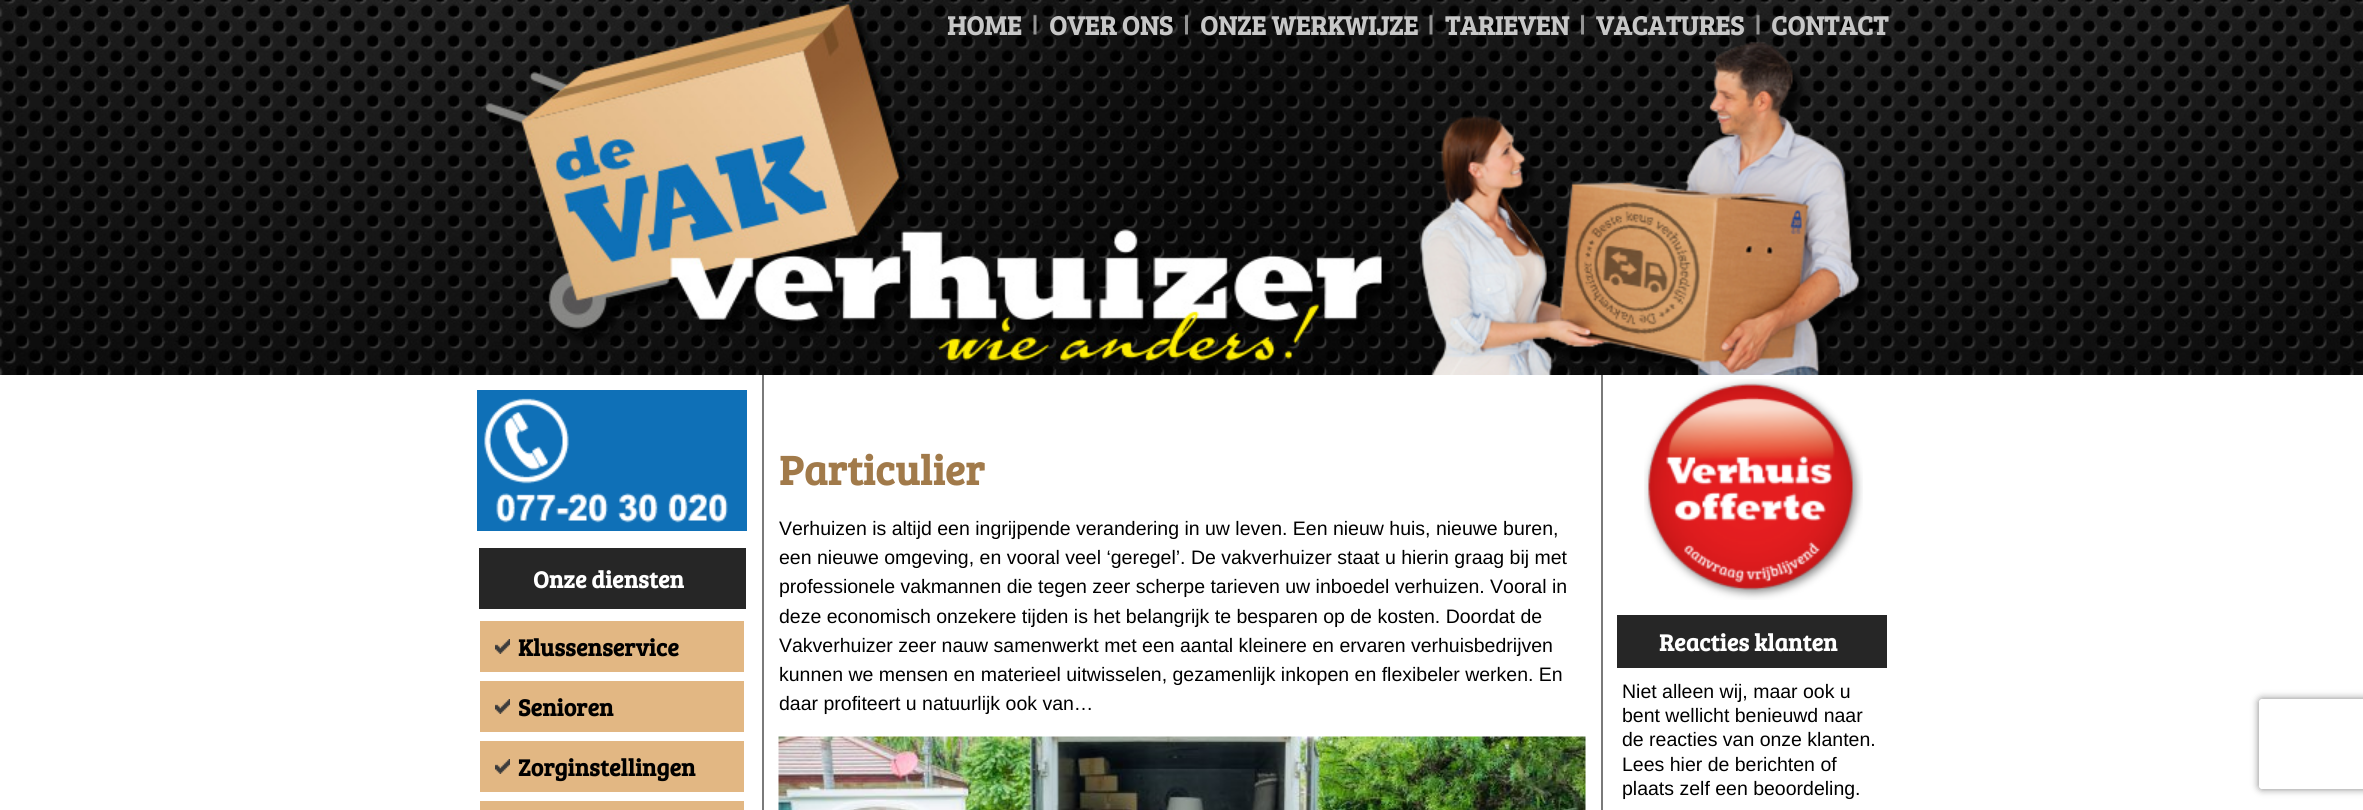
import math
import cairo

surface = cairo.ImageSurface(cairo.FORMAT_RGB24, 2363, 810)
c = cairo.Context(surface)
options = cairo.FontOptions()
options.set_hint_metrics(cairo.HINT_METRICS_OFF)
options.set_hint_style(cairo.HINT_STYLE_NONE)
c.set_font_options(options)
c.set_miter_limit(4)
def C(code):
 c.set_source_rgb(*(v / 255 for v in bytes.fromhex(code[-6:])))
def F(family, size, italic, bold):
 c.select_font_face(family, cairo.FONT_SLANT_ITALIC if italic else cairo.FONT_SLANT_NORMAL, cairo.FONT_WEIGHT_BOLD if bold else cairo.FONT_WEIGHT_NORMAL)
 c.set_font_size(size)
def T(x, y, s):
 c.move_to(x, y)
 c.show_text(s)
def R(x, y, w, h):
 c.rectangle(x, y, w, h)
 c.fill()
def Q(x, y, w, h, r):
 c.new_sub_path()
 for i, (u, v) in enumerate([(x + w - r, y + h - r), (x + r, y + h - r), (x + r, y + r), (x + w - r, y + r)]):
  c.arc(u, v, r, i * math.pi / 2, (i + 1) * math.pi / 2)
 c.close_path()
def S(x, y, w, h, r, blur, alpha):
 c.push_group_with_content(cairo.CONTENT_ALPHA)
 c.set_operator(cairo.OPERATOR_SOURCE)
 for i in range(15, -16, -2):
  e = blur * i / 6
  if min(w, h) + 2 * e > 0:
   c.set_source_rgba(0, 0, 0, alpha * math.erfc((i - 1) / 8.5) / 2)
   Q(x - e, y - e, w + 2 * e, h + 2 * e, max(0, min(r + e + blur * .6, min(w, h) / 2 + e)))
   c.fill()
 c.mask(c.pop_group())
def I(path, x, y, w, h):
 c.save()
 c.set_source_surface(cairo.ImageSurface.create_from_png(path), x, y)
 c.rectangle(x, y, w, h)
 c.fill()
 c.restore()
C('ffffff')
c.paint()
I('1.png',0,0,2363,375)
F('Bree Serif',27,0,1)
C('c7c7c7')
T(947,35,'HOME')
I('2.png',1033,14,4,21)
T(1049,35,'OVER ONS')
I('3.png',1185,14,3,21)
T(1200,35,'ONZE WERKWIJZE')
I('4.png',1429,14,4,21)
T(1445,35,'TARIEVEN')
I('5.png',1581,14,3,21)
T(1596,35,'VACATURES')
I('6.png',1756,14,4,21)
T(1771,35,'CONTACT')
I('7.png',1420,41,448,334)
C('7a7a7a')
R(762,375,2,435)
I('8.png',477,390,270,141)
C('262626')
R(479,548,267,61)
F('Bree Serif',24,0,1)
C('ffffff')
T(533,588,'Onze diensten')
C('e2b783')
R(480,621,264,51)
I('9.png',495,639,15,15)
C('000000')
T(518,656,'Klussenservice')
C('e2b783')
R(480,681,264,51)
I('9.png',495,699,15,15)
C('000000')
T(518,716,'Senioren')
C('e2b783')
R(480,741,264,51)
I('9.png',495,759,15,15)
C('000000')
T(518,776,'Zorginstellingen')
C('e2b783')
R(480,801,264,9)
F('Bree Serif',42,0,1)
C('a17a4a')
T(779,485,'Particulier')
F('Liberation Sans',19.5,0,0)
C('000000')
T(779,535,'Verhuizen is altijd een ingrijpende verandering in uw leven. Een nieuw huis, nieuwe buren,')
T(779,564,'een nieuwe omgeving, en vooral veel ‘geregel’. De vakverhuizer staat u hierin graag bij met')
T(779,593,'professionele vakmannen die tegen zeer scherpe tarieven uw inboedel verhuizen. Vooral in')
T(779,623,'deze economisch onzekere tijden is het belangrijk te besparen op de kosten. Doordat de')
T(779,652,'Vakverhuizer zeer nauw samenwerkt met een aantal kleinere en ervaren verhuisbedrijven')
T(779,681,'kunnen we mensen en materieel uitwisselen, gezamenlijk inkopen en flexibeler werken. En')
T(779,710,'daar profiteert u natuurlijk ook van…')
I('10.png',778,736,808,74)
C('7a7a7a')
R(1601,375,2,435)
I('11.png',1644,379,219,221)
C('262626')
R(1617,615,270,53)
F('Bree Serif',24,0,1)
C('ffffff')
T(1659,651,'Reacties klanten')
F('Liberation Sans',19.5,0,0)
C('000000')
T(1622,698,'Niet alleen wij, maar ook u')
T(1622,722,'bent wellicht benieuwd naar')
T(1622,746,'de reacties van onze klanten.')
T(1622,771,'Lees hier de berichten of')
T(1622,795,'plaats zelf een beoordeling.')
c.save()
c.set_fill_rule(cairo.FILL_RULE_EVEN_ODD)
c.new_path()
c.move_to(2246,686)
c.line_to(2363,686)
c.line_to(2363,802)
c.line_to(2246,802)
c.close_path()
c.move_to(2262,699)
c.line_to(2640,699)
c.curve_to(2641.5,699,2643,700.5,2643,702)
c.line_to(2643,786)
c.curve_to(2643,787.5,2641.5,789,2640,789)
c.line_to(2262,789)
c.curve_to(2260.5,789,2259,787.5,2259,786)
c.line_to(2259,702)
c.curve_to(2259,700.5,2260.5,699,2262,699)
c.close_path()
c.clip()
C('808080')
S(2259,699,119,90,3,4,1)
c.restore()
surface.write_to_png('o.png')
